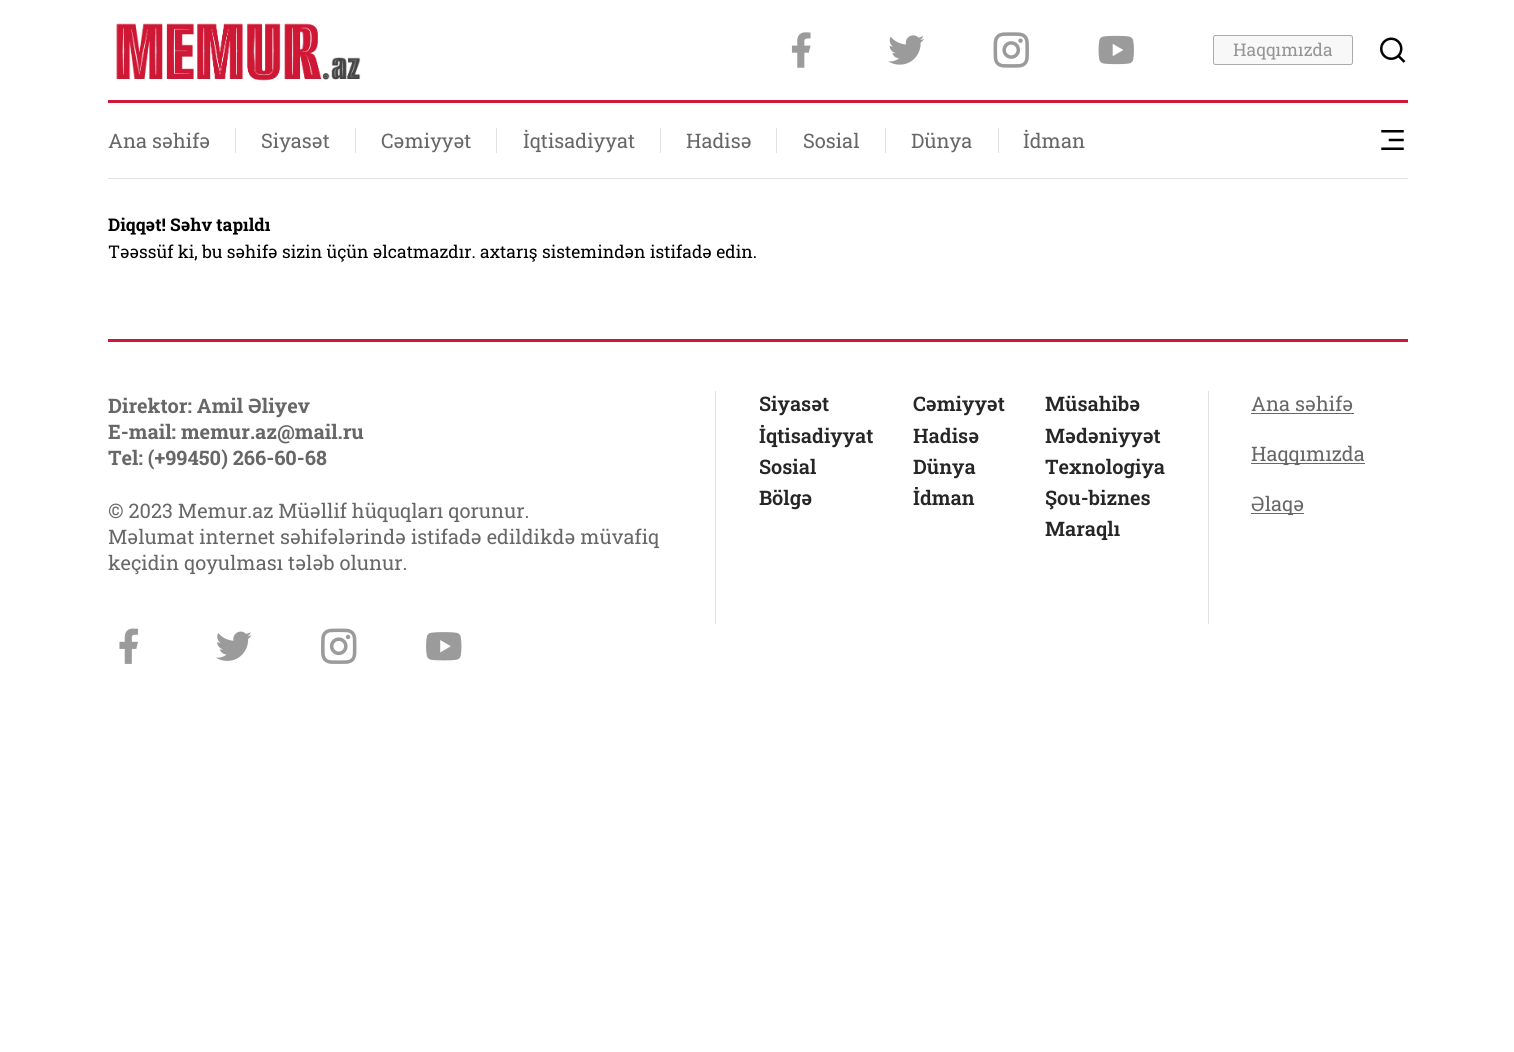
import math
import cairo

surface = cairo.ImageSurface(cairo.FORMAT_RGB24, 1514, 1052)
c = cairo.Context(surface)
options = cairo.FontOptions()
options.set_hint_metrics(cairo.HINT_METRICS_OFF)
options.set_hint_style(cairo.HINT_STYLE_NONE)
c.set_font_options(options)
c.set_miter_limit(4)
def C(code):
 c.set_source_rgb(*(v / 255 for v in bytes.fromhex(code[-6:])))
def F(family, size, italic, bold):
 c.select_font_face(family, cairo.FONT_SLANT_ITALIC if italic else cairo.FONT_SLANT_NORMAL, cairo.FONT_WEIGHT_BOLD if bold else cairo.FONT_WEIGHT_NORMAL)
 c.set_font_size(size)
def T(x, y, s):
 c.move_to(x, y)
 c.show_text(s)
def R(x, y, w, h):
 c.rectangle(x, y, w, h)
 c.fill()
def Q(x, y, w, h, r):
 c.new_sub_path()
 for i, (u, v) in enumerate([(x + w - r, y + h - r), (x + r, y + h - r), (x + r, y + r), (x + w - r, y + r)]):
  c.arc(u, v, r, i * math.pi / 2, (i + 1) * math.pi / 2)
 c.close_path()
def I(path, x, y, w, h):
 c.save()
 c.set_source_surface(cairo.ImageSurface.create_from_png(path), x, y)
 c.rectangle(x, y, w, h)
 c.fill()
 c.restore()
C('ffffff')
c.paint()
C('ce1835')
R(108,100,1300,3)
I('1.png',116,23,245,58)
I('2.png',791,32,20,36)
I('3.png',888,35,36,30)
I('4.png',993,32,36,36)
I('5.png',1098,35,36,30)
C('f8f8f8')
Q(1213.5,35.5,139,29,2)
c.fill_preserve()
C('aaaaaa')
c.set_line_width(1)
c.stroke()
F('Roboto Slab',17.5,0,0)
C('959595')
T(1233,56,'Haqqımızda')
I('6.png',1380,37,26,26)
C('e1e1e1')
R(108,178,1300,1)
F('Roboto Slab',20,0,0)
C('676767')
T(108,148,'Ana səhifə')
C('e1e1e1')
R(235,128,1,25)
C('676767')
T(261,148,'Siyasət')
C('e1e1e1')
R(355,128,1,25)
C('676767')
T(381,148,'Cəmiyyət')
C('e1e1e1')
R(496,128,1,25)
C('676767')
T(523,148,'İqtisadiyyat')
C('e1e1e1')
R(660,128,1,25)
C('676767')
T(686,148,'Hadisə')
C('e1e1e1')
R(776,128,1,25)
C('676767')
T(803,148,'Sosial')
C('e1e1e1')
R(885,128,1,25)
C('676767')
T(911,148,'Dünya')
C('e1e1e1')
R(998,128,1,25)
C('676767')
T(1023,148,'İdman')
I('7.png',1381,130,23,20)
F('Roboto Slab',17.5,0,1)
C('000000')
T(108,231,'Diqqət! Səhv tapıldı')
F('Roboto Slab',17.5,0,0)
T(108,258,'Təəssüf ki, bu səhifə sizin üçün əlcatmazdır. axtarış sistemindən istifadə edin.')
C('ce1835')
R(108,339,1300,3)
F('Roboto Slab',20,0,1)
C('676767')
T(108,413,'Direktor: Amil Əliyev')
T(108,439,'E-mail: memur.az@mail.ru')
c.save()
c.rectangle(108,391,607,289)
c.clip()
T(108,465,'Tel: (+99450) 266-60-68')
c.restore()
F('Roboto Slab',20,0,0)
T(108,518,'© 2023 Memur.az Müəllif hüquqları qorunur.')
T(108,544,'Məlumat internet səhifələrində istifadə edildikdə müvafiq')
T(108,570,'keçidin qoyulması tələb olunur.')
I('8.png',119,628,20,36)
I('9.png',216,631,36,30)
I('10.png',321,628,36,36)
I('11.png',426,632,36,29)
C('e1e1e1')
R(715,391,1,233)
F('Roboto Slab SemiBold',20,0,0)
C('262626')
T(759,411,'Siyasət')
T(759,443,'İqtisadiyyat')
T(759,474,'Sosial')
T(759,505,'Bölgə')
T(913,411,'Cəmiyyət')
T(913,443,'Hadisə')
T(913,474,'Dünya')
T(913,505,'İdman')
T(1045,411,'Müsahibə')
T(1045,443,'Mədəniyyət')
T(1045,474,'Texnologiya')
T(1045,505,'Şou-biznes')
T(1045,536,'Maraqlı')
C('e1e1e1')
R(1208,391,1,233)
F('Roboto Slab',20,0,0)
C('676767')
T(1251,411,'Ana səhifə')
R(1251,413,103,1)
R(1251,463,114,1)
T(1251,461,'Haqqımızda')
R(1251,513,53,1)
T(1251,511,'Əlaqə')
surface.write_to_png('o.png')
